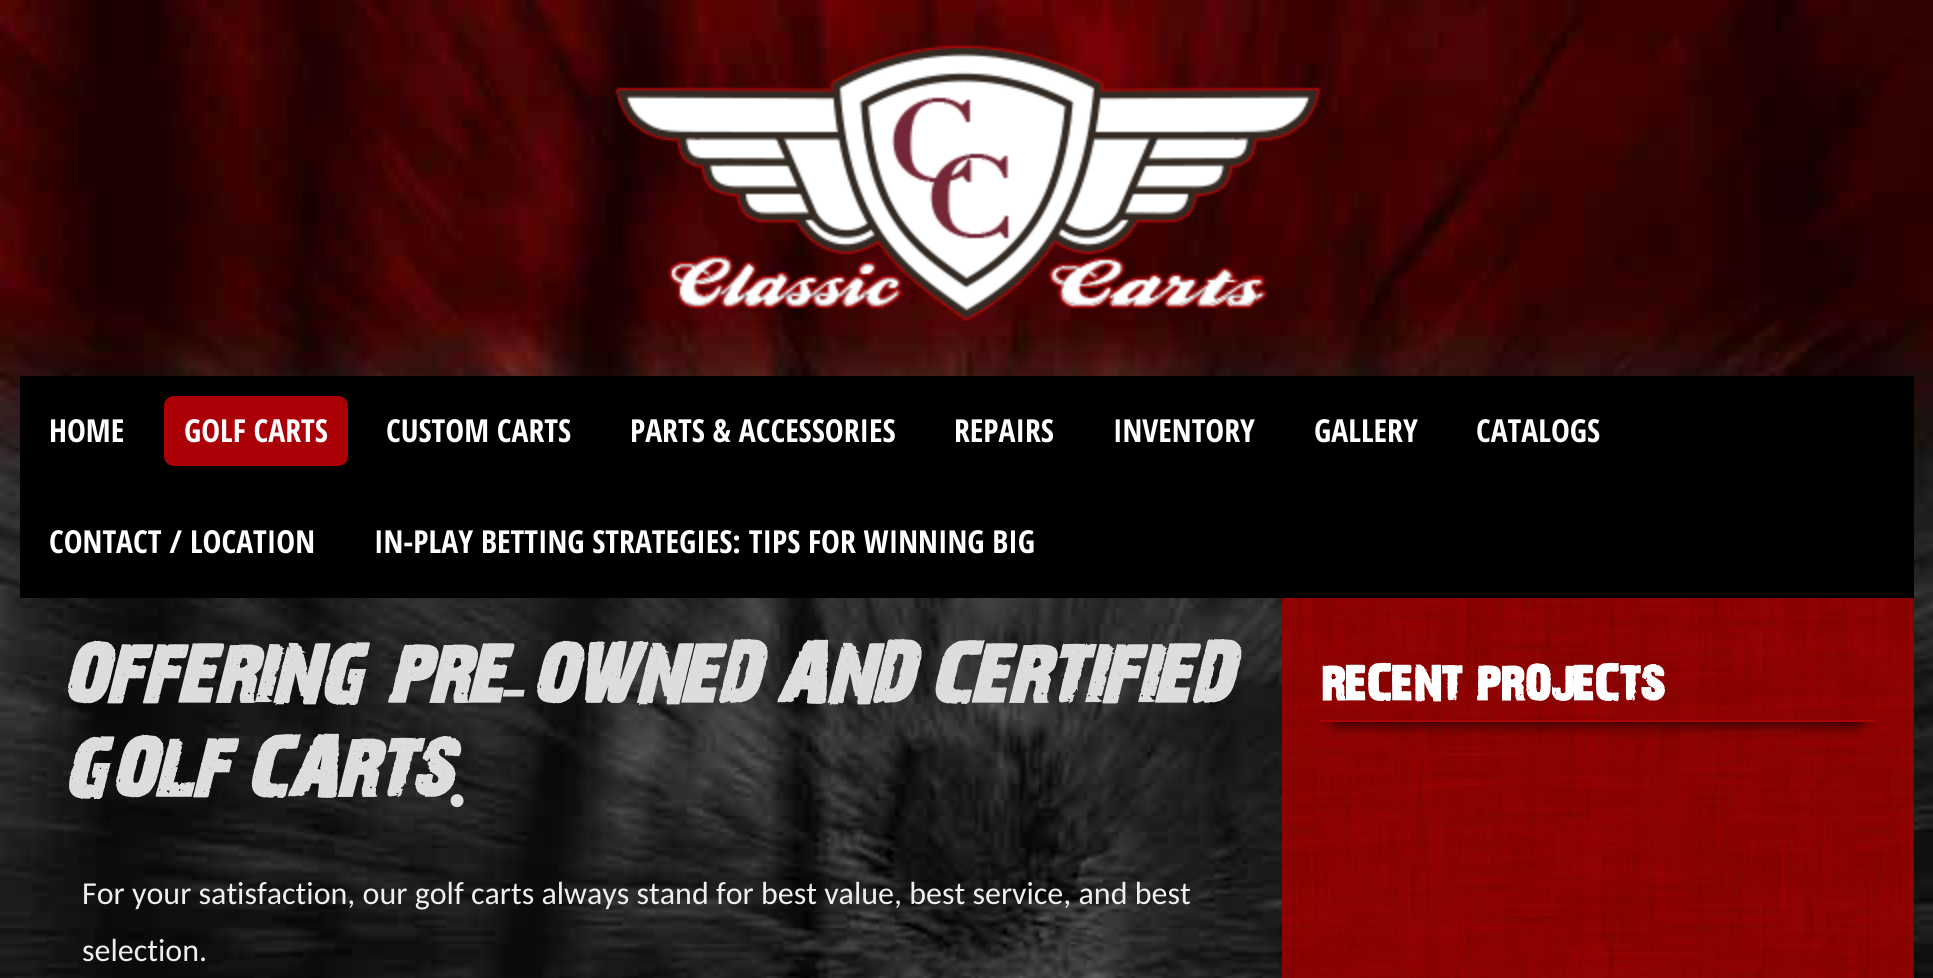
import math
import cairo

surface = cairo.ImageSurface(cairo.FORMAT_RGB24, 1933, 978)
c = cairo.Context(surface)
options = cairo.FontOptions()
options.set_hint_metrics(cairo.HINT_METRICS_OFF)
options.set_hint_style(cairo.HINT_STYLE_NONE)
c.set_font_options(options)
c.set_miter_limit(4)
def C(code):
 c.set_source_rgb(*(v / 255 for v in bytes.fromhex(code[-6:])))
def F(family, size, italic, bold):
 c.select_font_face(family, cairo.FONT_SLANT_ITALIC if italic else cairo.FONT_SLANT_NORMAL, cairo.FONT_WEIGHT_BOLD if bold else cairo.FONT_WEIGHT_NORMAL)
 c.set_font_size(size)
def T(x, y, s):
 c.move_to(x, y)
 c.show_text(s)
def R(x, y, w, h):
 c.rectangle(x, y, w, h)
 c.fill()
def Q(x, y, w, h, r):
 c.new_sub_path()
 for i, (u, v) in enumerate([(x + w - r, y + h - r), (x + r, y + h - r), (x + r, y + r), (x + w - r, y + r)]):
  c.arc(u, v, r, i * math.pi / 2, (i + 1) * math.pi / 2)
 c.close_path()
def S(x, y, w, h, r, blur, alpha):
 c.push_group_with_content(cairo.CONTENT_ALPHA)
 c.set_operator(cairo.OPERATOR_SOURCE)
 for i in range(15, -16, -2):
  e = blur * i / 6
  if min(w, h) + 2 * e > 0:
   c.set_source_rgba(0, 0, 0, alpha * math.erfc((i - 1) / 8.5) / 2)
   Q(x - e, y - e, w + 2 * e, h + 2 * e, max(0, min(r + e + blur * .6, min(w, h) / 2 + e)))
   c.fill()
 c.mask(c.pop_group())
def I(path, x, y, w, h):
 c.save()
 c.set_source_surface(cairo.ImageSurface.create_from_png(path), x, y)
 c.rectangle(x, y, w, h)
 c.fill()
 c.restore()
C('ffffff')
c.paint()
I('1.png',0,0,1933,978)
I('2.png',615,45,706,277)
C('000000')
R(20,376,1894,222)
F('Open Sans Condensed',31.7,0,1)
C('ffffff')
T(49,442,'HOME')
C('ab0006')
Q(164,396,184,70,10)
c.fill()
C('ffffff')
T(184,442,'GOLF CARTS')
T(386,442,'CUSTOM CARTS')
T(630,442,'PARTS & ACCESSORIES')
T(954,442,'REPAIRS')
T(1113,442,'INVENTORY')
T(1314,442,'GALLERY')
T(1476,442,'CATALOGS')
T(49,553,'CONTACT / LOCATION')
T(374,553,'IN-PLAY BETTING STRATEGIES: TIPS FOR WINNING BIG')
F('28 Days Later',80,1,1)
C('dddddd')
T(58,712,'OFFERING PRE')
F('Liberation Serif',80,1,1)
T(501,712,'-')
F('28 Days Later',80,1,1)
T(527,712,'OWNED AND CERTIFIED')
T(58,806,'GOLF CARTS')
F('Liberation Serif',80,1,1)
T(450,806,'.')
F('Carlito',32,0,0)
C('eeeeee')
T(82,904,'For your satisfaction, our golf carts always stand for best value, best service, and best')
T(82,961,'selection.')
I('3.png',1282,598,632,380)
c.save()
c.rectangle(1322,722,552,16)
c.clip()
C('000000')
S(1336,700,524,22,0,8,1)
c.restore()
C('ab0006')
R(1320,720,556,2)
F('28 Days Later',48,0,1)
C('ffffff')
T(1321,706,'RECENT PROJECTS')
surface.write_to_png('o.png')
